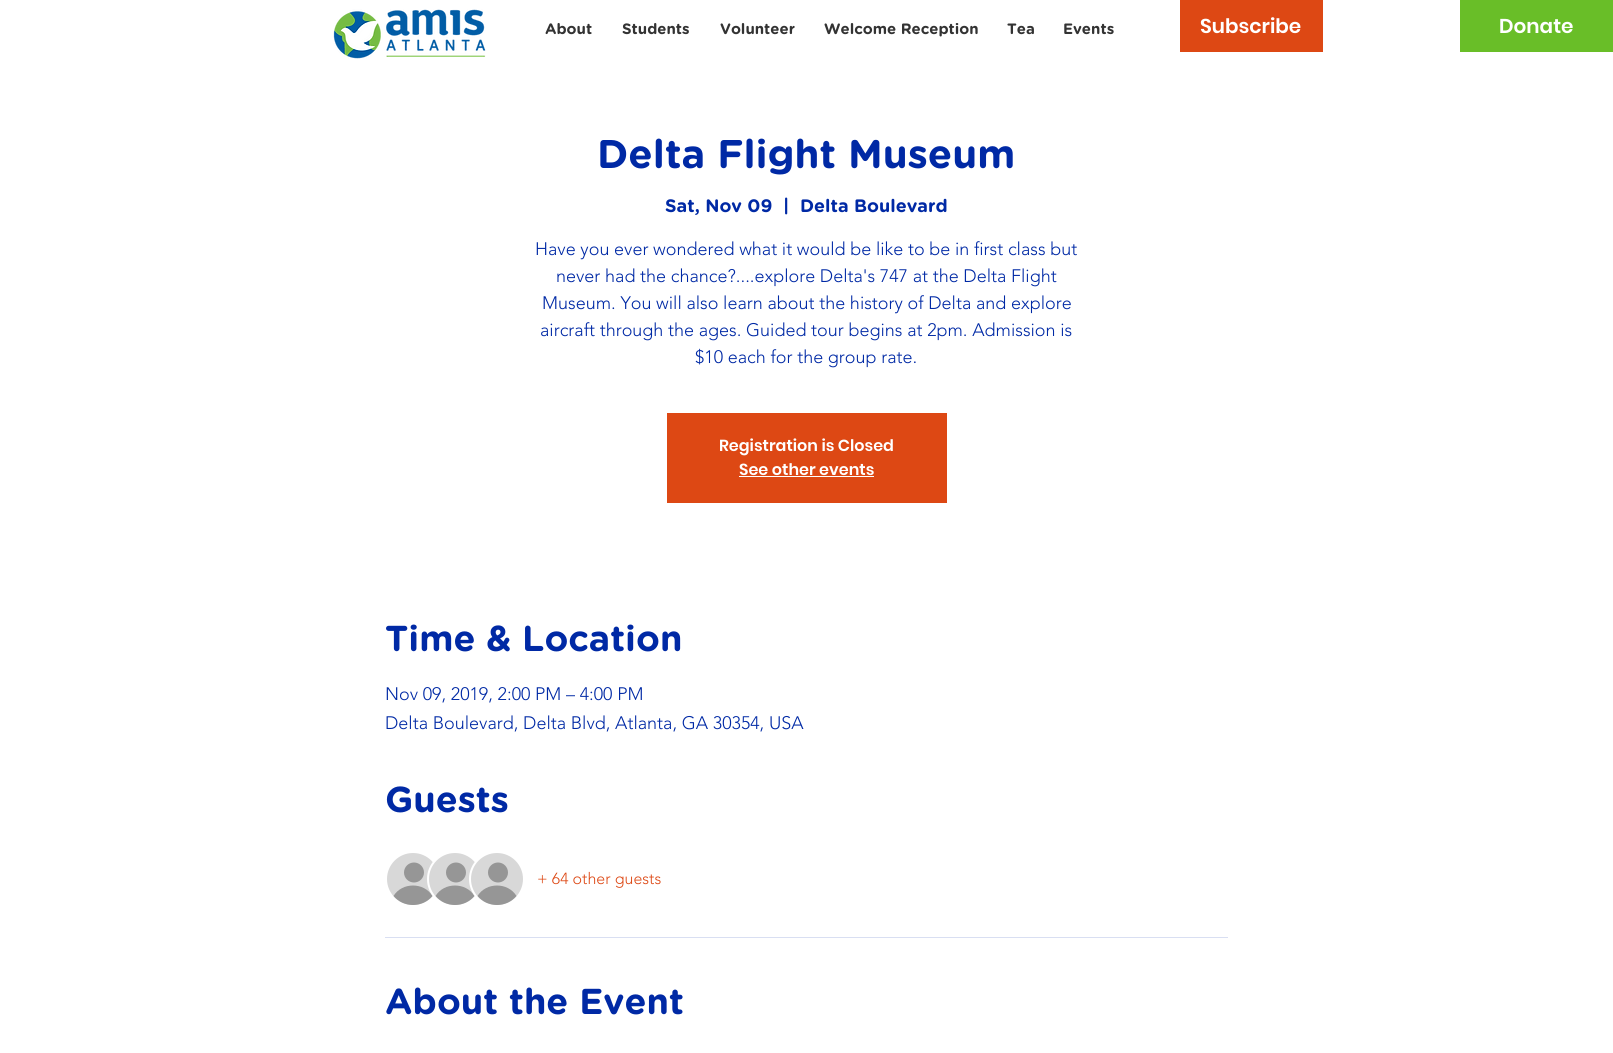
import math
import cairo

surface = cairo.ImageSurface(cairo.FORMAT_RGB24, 1613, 1053)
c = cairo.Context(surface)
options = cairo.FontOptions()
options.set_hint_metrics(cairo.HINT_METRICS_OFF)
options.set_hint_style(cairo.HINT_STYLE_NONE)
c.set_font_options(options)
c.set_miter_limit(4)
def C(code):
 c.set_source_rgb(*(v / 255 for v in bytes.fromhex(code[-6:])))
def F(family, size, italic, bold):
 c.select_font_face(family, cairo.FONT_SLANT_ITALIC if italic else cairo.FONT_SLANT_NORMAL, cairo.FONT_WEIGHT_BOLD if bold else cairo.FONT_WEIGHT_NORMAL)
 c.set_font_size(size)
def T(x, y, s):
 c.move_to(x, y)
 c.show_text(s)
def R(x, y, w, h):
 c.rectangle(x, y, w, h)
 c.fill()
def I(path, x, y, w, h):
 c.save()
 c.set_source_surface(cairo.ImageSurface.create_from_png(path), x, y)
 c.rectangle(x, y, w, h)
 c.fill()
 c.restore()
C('ffffff')
c.paint()
I('1.png',333,9,153,50)
F('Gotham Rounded',15,0,1)
C('333333')
T(545,34,'About')
T(622,34,'Students')
T(720,34,'Volunteer')
T(824,34,'Welcome Reception')
T(1007,34,'Tea')
T(1063,34,'Events')
C('dd4814')
R(1180,0,143,52)
F('Poppins SemiBold',20,0,0)
C('ffffff')
T(1200,33,'Subscribe')
C('69be28')
R(1460,0,153,52)
C('ffffff')
T(1499,33,'Donate')
F('Gotham Rounded',40,0,1)
C('0029a5')
T(597,168,'Delta Flight Museum')
F('Gotham Rounded',18,0,1)
T(665,212,'Sat, Nov 09')
T(783,212,'|')
T(800,212,'Delta Boulevard')
F('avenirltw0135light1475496 Light',18,0,0)
T(535,255,'Have you ever wondered what it would be like to be in first class but')
T(556,282,'never had the chance?....explore Delta\'s 747 at the Delta Flight')
T(542,309,'Museum. You will also learn about the history of Delta and explore')
T(540,336,'aircraft through the ages. Guided tour begins at 2pm. Admission is')
T(695,363,'$10 each for the group rate.')
C('dd4814')
R(667,413,280,90)
F('Poppins SemiBold',16,0,0)
C('ffffff')
T(719,451,'Registration is Closed')
T(739,475,'See other events')
R(739,476,135,1)
F('Gotham Rounded',36,0,1)
C('0029a5')
T(385,651,'Time & Location')
F('avenirltw0135light1475496 Light',18,0,0)
T(385,700,'Nov 09, 2019, 2:00 PM – 4:00 PM')
T(385,729,'Delta Boulevard, Delta Blvd, Atlanta, GA 30354, USA')
F('Gotham Rounded',36,0,1)
T(385,812,'Guests')
C('d8d8d8')
c.new_path()
c.arc(413,879,27,0,2 * math.pi)
c.fill_preserve()
C('ffffff')
c.stroke()
C('969696')
c.arc(414,872.5,10,0,2 * math.pi)
c.fill()
c.new_path()
c.move_to(432.5,896)
c.curve_to(422.5,908,403.5,908,393.5,896)
c.curve_to(402,882,424,882,432.5,896)
c.close_path()
c.fill()
C('d8d8d8')
c.arc(455,879,27,0,2 * math.pi)
c.fill_preserve()
C('ffffff')
c.stroke()
C('969696')
c.arc(456,872.5,10,0,2 * math.pi)
c.fill()
c.new_path()
c.move_to(474.5,896)
c.curve_to(464.5,908,445.5,908,435.5,896)
c.curve_to(444,882,466,882,474.5,896)
c.close_path()
c.fill()
C('d8d8d8')
c.arc(497,879,27,0,2 * math.pi)
c.fill_preserve()
C('ffffff')
c.stroke()
C('969696')
c.arc(498,872.5,10,0,2 * math.pi)
c.fill()
c.new_path()
c.move_to(516.5,896)
c.curve_to(506.5,908,487.5,908,477.5,896)
c.curve_to(486,882,508,882,516.5,896)
c.close_path()
c.fill()
F('avenirltw0135light1475496 Light',16,0,0)
C('dd4814')
T(537,884,'+ 64 other guests')
C('d9dff2')
R(385,937,843,1)
F('Gotham Rounded',36,0,1)
C('0029a5')
T(385,1014,'About the Event')
surface.write_to_png('o.png')
